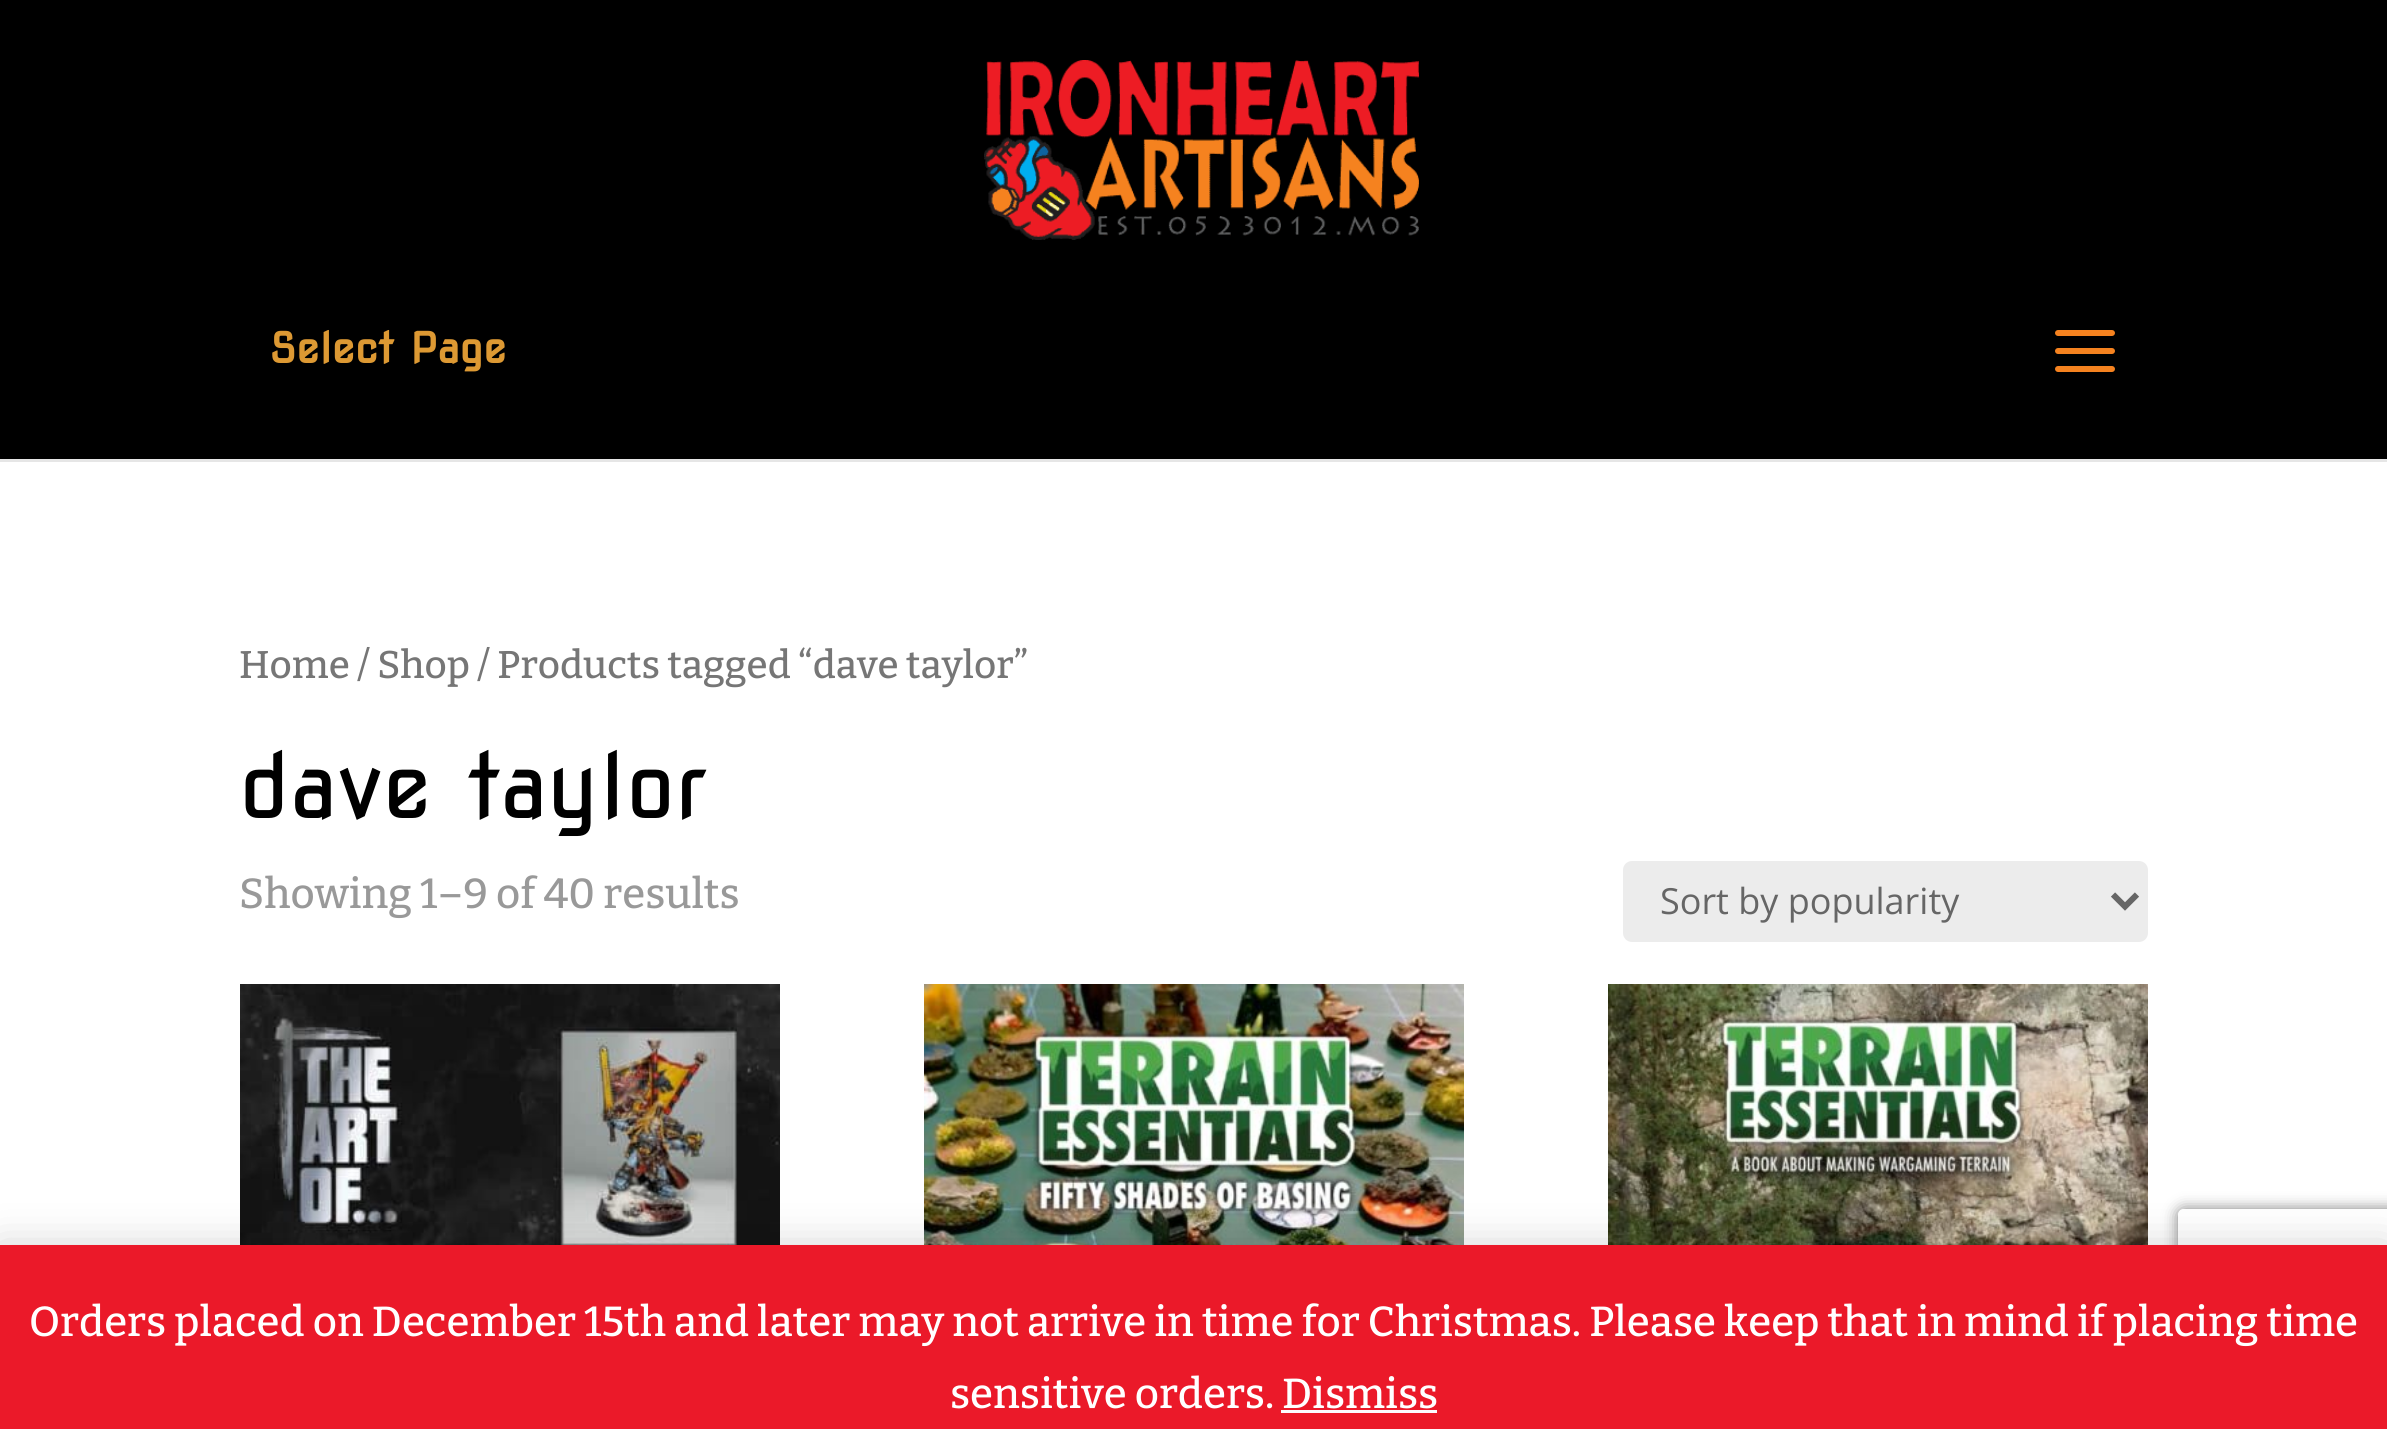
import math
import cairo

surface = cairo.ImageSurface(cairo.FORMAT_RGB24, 2387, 1429)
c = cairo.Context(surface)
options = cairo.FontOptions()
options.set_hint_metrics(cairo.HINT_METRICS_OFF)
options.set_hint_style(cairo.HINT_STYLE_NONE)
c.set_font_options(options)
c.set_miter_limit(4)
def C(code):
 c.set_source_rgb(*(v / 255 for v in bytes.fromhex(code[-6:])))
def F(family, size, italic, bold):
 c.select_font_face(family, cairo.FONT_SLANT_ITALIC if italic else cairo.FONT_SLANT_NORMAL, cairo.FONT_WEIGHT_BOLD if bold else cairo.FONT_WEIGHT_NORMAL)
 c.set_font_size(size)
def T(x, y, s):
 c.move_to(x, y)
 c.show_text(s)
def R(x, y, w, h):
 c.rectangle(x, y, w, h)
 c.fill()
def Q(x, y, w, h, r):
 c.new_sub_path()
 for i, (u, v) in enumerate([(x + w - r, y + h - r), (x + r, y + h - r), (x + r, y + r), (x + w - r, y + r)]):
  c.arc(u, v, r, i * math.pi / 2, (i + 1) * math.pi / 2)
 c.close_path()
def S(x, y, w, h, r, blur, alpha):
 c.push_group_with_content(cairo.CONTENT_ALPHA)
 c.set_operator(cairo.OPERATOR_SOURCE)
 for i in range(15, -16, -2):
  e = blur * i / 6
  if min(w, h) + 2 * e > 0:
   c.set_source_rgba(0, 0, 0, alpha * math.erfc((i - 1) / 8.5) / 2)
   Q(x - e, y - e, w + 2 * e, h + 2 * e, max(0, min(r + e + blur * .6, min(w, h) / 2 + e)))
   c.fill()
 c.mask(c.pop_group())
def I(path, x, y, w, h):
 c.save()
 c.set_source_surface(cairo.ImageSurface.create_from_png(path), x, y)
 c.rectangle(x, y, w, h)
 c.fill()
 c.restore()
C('ffffff')
c.paint()
C('e6e6e6')
R(0,459,2387,3)
C('000000')
R(0,0,2387,459)
I('1.png',984,60,435,180)
F('Nova Square',42,0,1)
C('dd9933')
T(269,363,'Select Page')
I('2.png',2055,330,60,42)
F('Bitter Medium',38.6,0,0)
C('767676')
T(239,678,'Home / Shop / Products tagged “dave taylor”')
F('Nova Square',90,0,0)
C('000000')
T(239,818,'dave taylor')
F('Bitter Medium',42,0,0)
C('999999')
T(239,908,'Showing 1–9 of 40 results')
C('ececec')
Q(1623,861,525,81,9)
c.fill()
c.new_path()
c.move_to(2113,894.5)
c.line_to(2125,906.5)
c.line_to(2137,894.5)
C('666666')
c.set_line_width(6)
c.stroke()
F('Open Sans',36,0,0)
T(1660,914,'Sort by popularity')
I('3.png',240,984,540,261)
I('4.png',924,984,540,261)
I('5.png',1608,984,540,261)
c.save()
c.set_fill_rule(cairo.FILL_RULE_EVEN_ODD)
c.new_path()
c.move_to(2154,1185)
c.line_to(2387,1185)
c.line_to(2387,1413)
c.line_to(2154,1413)
c.close_path()
c.move_to(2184,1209)
c.line_to(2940,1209)
c.curve_to(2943.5,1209,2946,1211.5,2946,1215)
c.line_to(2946,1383)
c.curve_to(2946,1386.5,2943.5,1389,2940,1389)
c.line_to(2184,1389)
c.curve_to(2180.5,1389,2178,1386.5,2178,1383)
c.line_to(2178,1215)
c.curve_to(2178,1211.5,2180.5,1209,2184,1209)
c.close_path()
c.clip()
C('808080')
S(2178,1209,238,180,6,7.5,1)
c.restore()
C('000000')
S(0,1248,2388,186,0,21,.2)
C('eb1929')
R(0,1245,2387,184)
F('Bitter Medium',42,0,0)
C('ffffff')
T(29,1336,'Orders placed on December 15th and later may not arrive in time for Christmas. Please keep that in mind if placing time')
T(950,1408,'sensitive orders.')
T(1282,1408,'Dismiss')
C('fcfbfe')
R(1281,1410,156,3)
surface.write_to_png('o.png')
